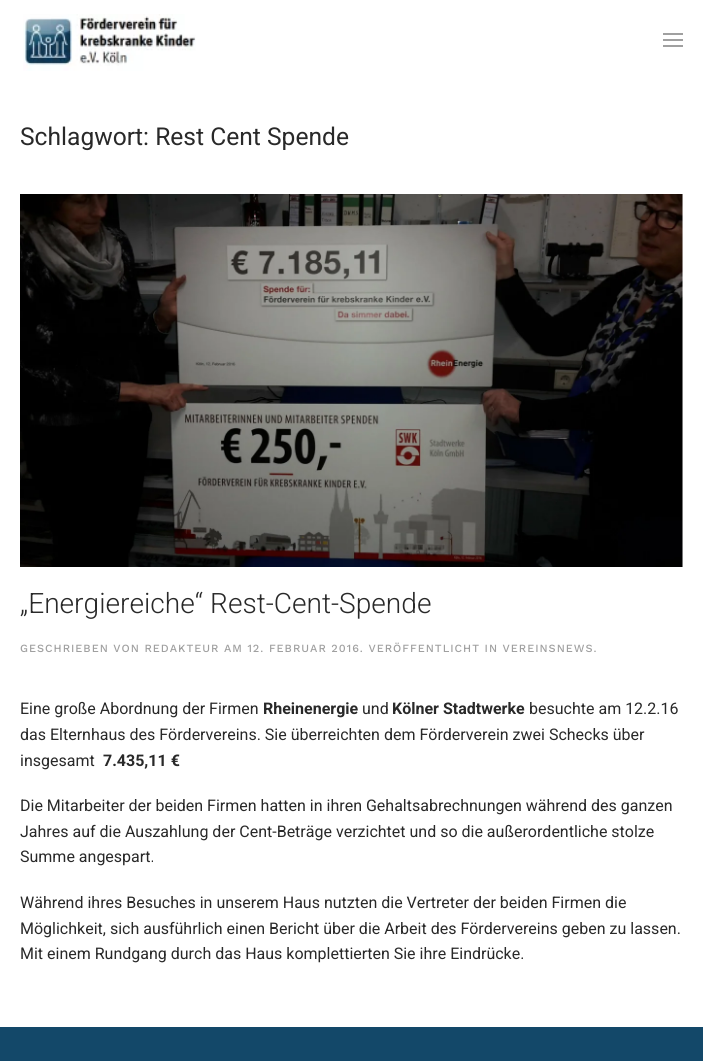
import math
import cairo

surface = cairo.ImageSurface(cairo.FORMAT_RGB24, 703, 1061)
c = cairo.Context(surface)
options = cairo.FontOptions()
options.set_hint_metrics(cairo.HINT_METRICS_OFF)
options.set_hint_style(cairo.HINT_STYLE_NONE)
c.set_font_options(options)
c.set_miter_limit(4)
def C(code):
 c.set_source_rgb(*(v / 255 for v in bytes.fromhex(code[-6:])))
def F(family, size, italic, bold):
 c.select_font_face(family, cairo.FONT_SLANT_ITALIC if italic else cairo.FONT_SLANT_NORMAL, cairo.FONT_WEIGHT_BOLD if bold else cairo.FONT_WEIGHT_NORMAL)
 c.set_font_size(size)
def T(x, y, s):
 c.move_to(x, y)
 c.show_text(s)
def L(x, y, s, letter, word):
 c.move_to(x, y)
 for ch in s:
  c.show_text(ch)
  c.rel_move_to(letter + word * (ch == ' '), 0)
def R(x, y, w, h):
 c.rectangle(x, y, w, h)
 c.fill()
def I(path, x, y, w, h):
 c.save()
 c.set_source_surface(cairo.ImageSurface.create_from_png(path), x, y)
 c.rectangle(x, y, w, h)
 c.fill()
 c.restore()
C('ffffff')
c.paint()
I('1.png',23,14,173,57)
C('a0a0a0')
R(663,33,20,2)
R(663,39,20,2)
R(663,45,20,2)
F('Roboto',24.6,0,0)
C('292929')
T(20,145,'Schlagwort: Rest Cent Spende')
I('2.png',20,194,663,373)
F('Roboto Light',28.1,0,0)
T(20,613,'„Energiereiche“ Rest-Cent-Spende')
F('Work Sans Medium',11,0,0)
C('a0a0a0')
L(20,652,'GESCHRIEBEN VON REDAKTEUR AM 12. FEBRUAR 2016. VERÖFFENTLICHT IN VEREINSNEWS.',1,0)
F('Roboto',16,0,0)
C('292929')
T(20,714,'Eine große Abordnung der Firmen')
F('Roboto',16,0,1)
T(263,714,'Rheinenergie')
F('Roboto',16,0,0)
T(362,714,'und')
F('Roboto',16,0,1)
T(392,714,'Kölner Stadtwerke')
F('Roboto',16,0,0)
T(529,714,'besuchte am 12.2.16')
T(20,740,'das Elternhaus des Fördervereins. Sie überreichten dem Förderverein zwei Schecks über')
T(20,766,'insgesamt')
F('Roboto',16,0,1)
T(103,766,'7.435,11 €')
F('Roboto',16,0,0)
T(20,811,'Die Mitarbeiter der beiden Firmen hatten in ihren Gehaltsabrechnungen während des ganzen')
T(20,837,'Jahres auf die Auszahlung der Cent-Beträge verzichtet und so die außerordentliche stolze')
T(20,862,'Summe angespart.')
T(20,908,'Während ihres Besuches in unserem Haus nutzten die Vertreter der beiden Firmen die')
T(20,934,'Möglichkeit, sich ausführlich einen Bericht über die Arbeit des Fördervereins geben zu lassen.')
T(20,959,'Mit einem Rundgang durch das Haus komplettierten Sie ihre Eindrücke.')
C('134869')
R(0,1027,703,34)
surface.write_to_png('o.png')
